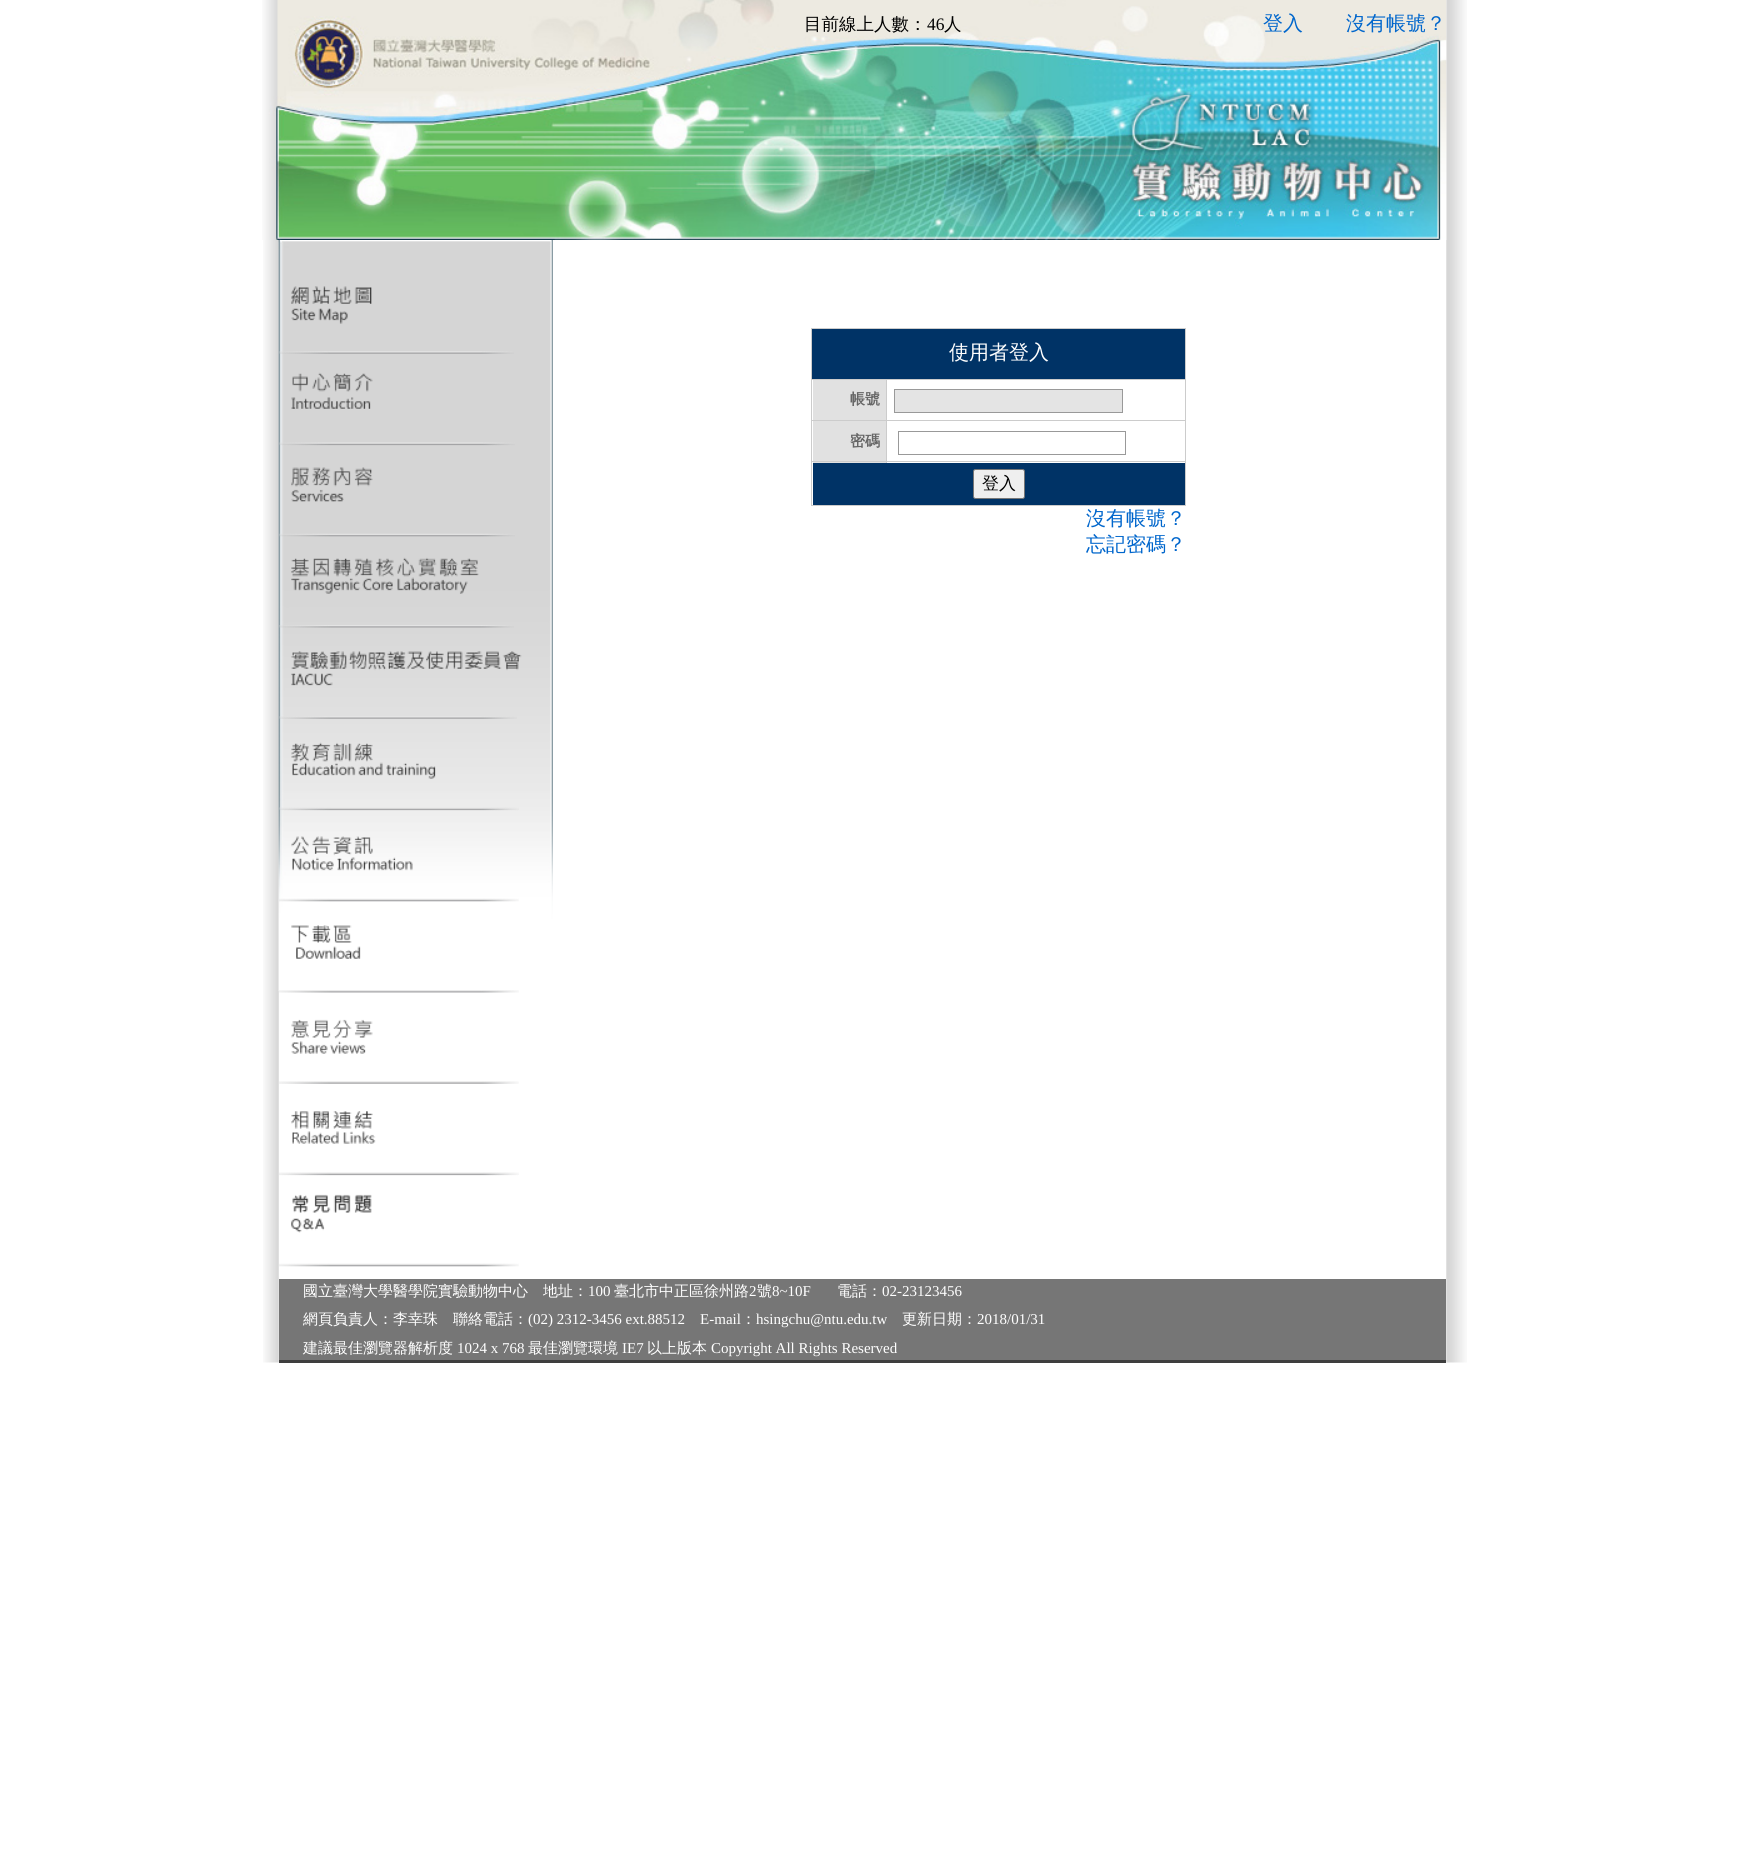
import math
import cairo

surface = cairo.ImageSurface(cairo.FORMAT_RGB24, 1748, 1870)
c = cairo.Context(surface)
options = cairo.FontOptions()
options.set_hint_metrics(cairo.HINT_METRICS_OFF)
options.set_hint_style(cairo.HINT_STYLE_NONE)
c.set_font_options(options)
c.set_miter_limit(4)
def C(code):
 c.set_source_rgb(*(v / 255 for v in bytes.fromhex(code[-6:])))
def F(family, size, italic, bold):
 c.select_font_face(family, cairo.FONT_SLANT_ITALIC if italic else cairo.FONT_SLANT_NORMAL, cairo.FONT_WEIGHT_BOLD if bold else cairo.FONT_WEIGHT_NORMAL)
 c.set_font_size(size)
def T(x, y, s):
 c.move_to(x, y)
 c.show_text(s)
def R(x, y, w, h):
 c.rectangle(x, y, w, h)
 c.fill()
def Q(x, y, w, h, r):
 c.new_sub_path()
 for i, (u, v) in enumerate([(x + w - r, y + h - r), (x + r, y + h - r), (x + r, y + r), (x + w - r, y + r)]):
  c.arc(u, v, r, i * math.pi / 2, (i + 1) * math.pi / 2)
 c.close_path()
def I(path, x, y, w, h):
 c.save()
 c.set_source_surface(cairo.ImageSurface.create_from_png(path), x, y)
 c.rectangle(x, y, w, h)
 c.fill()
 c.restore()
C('ffffff')
c.paint()
I('26.png',1446,0,21,1363)
I('1.png',262,0,1185,240)
F('WenQuanYi Zen Hei Medium',17.5,0,0)
C('000000')
T(804,30,'目前線上人數：')
F('Liberation Serif',17.5,0,0)
T(927,30,'46')
F('WenQuanYi Zen Hei Medium',17.5,0,0)
T(944,30,'人')
F('WenQuanYi Zen Hei Medium',20,0,0)
C('0066cc')
T(1263,30,'登入')
T(1346,30,'沒有帳號？')
I('2.png',263,240,16,1123)
I('3.png',278,240,275,751)
I('4.png',291,286,81,38)
I('5.png',279,351,235,3)
I('6.png',291,372,82,37)
I('7.png',279,442,236,4)
I('8.png',291,467,82,35)
I('9.png',279,533,236,4)
I('10.png',291,557,188,37)
I('11.png',279,625,235,3)
I('12.png',291,651,231,35)
I('13.png',279,716,238,3)
I('14.png',291,742,145,37)
I('15.png',279,807,240,4)
I('16.png',291,836,122,35)
I('17.png',279,898,240,4)
I('18.png',291,925,70,34)
I('19.png',279,990,240,3)
I('20.png',291,1019,82,35)
I('21.png',279,1081,240,3)
I('22.png',291,1111,85,33)
I('23.png',279,1172,240,4)
I('24.png',291,1194,81,39)
I('25.png',279,1263,240,4)
C('cccccc')
R(811,328,375,1)
R(1185,328,1,178)
R(811,505,375,1)
R(811,328,1,178)
C('003366')
R(812,329,373,50)
C('ffffff')
T(949,359,'使用者登入')
C('e1e1e1')
R(813,380,73,40)
C('cccccc')
R(886,379,300,1)
R(886,420,300,1)
R(886,461,300,1)
R(886,420,1,43)
R(811,420,77,1)
R(886,379,1,42)
R(811,379,77,1)
F('WenQuanYi Zen Hei',15,0,1)
C('666666')
T(850,404,'帳號')
C('e4e4e4')
c.rectangle(894.5,389.5,228,23)
c.fill_preserve()
C('999999')
c.set_line_width(1)
c.stroke()
C('e1e1e1')
R(813,421,73,42)
C('cccccc')
R(811,461,77,1)
C('666666')
T(850,446,'密碼')
c.rectangle(898.5,431.5,227,23)
C('999999')
c.stroke()
C('003366')
R(813,463,372,42)
C('efefef')
Q(973.5,469.5,51,29,2)
c.fill_preserve()
C('767676')
c.stroke()
F('WenQuanYi Zen Hei Medium',17,0,0)
C('000000')
T(982,489,'登入')
F('WenQuanYi Zen Hei Medium',20,0,0)
C('0066cc')
T(1086,525,'沒有帳號？')
T(1086,551,'忘記密碼？')
C('767676')
R(279,1279,1167,81)
C('3e3e3e')
R(279,1360,1167,3)
F('WenQuanYi Zen Hei Medium',15,0,0)
C('ffffff')
T(303,1296,'國立臺灣大學醫學院實驗動物中心')
T(543,1296,'地址：')
F('Liberation Serif',15,0,0)
T(588,1296,'100')
F('WenQuanYi Zen Hei Medium',15,0,0)
T(614,1296,'臺北市中正區徐州路')
F('Liberation Serif',15,0,0)
T(749,1296,'2')
F('WenQuanYi Zen Hei Medium',15,0,0)
T(757,1296,'號')
F('Liberation Serif',15,0,0)
T(772,1296,'8~10F')
F('WenQuanYi Zen Hei Medium',15,0,0)
T(837,1296,'電話：')
F('Liberation Serif',15,0,0)
T(882,1296,'02-23123456')
F('WenQuanYi Zen Hei Medium',15,0,0)
T(303,1324,'網頁負責人：李幸珠')
T(453,1324,'聯絡電話：')
F('Liberation Serif',15,0,0)
T(528,1324,'(02) 2312-3456 ext.88512    E-mail')
F('WenQuanYi Zen Hei Medium',15,0,0)
T(741,1324,'：')
F('Liberation Serif',15,0,0)
T(756,1324,'hsingchu@ntu.edu.tw')
F('WenQuanYi Zen Hei Medium',15,0,0)
T(902,1324,'更新日期：')
F('Liberation Serif',15,0,0)
T(977,1324,'2018/01/31')
F('WenQuanYi Zen Hei Medium',15,0,0)
T(303,1353,'建議最佳瀏覽器解析度')
F('Liberation Serif',15,0,0)
T(457,1353,'1024 x 768')
F('WenQuanYi Zen Hei Medium',15,0,0)
T(528,1353,'最佳瀏覽環境')
F('Liberation Serif',15,0,0)
T(622,1353,'IE7')
F('WenQuanYi Zen Hei Medium',15,0,0)
T(647,1353,'以上版本')
F('Liberation Serif',15,0,0)
T(711,1353,'Copyright All Rights Reserved')
surface.write_to_png('o.png')
